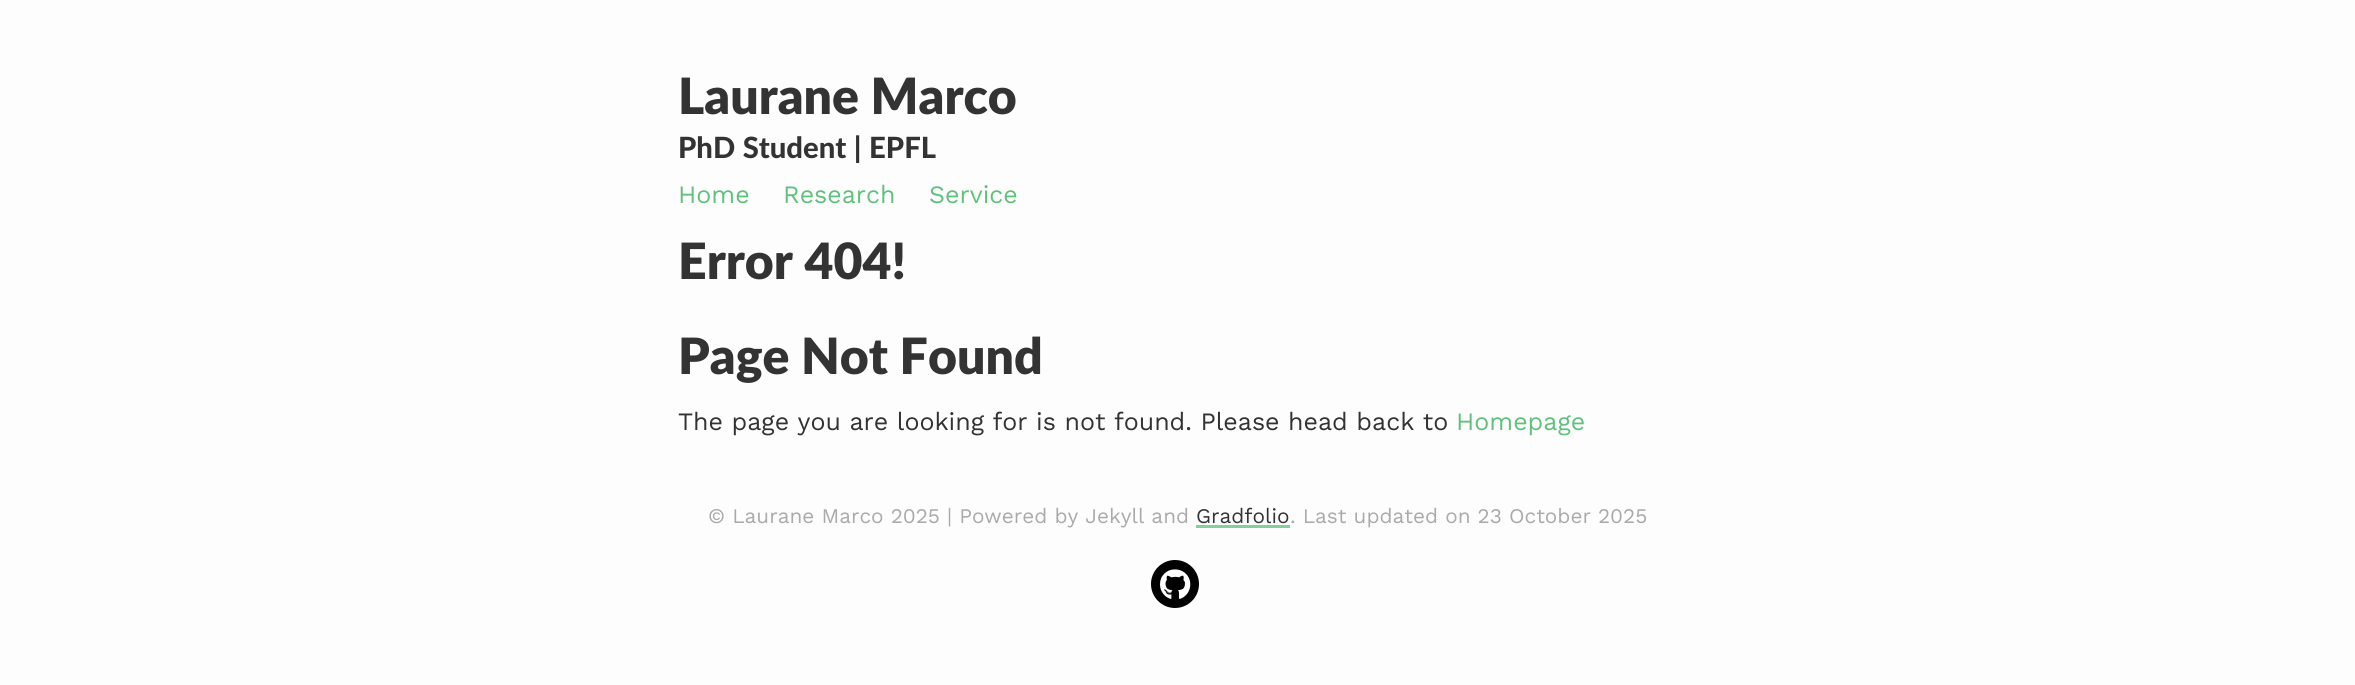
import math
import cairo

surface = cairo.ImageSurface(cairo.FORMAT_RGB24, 2355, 685)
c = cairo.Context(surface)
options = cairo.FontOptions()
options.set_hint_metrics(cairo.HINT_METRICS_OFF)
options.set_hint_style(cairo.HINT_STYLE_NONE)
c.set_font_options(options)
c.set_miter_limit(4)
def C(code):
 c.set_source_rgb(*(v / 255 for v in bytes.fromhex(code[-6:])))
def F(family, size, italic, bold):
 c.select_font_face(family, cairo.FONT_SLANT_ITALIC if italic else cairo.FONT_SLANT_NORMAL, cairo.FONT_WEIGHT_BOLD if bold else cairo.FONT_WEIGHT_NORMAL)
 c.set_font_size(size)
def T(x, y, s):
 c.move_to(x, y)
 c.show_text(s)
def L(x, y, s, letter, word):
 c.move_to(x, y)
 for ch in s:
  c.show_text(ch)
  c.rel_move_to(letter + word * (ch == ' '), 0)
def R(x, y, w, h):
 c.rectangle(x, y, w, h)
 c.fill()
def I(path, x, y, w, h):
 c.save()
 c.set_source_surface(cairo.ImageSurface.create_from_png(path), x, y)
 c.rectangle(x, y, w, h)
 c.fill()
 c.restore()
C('fdfdfd')
c.paint()
F('Lato Black',50,0,0)
C('333333')
T(678,114,'Laurane Marco')
F('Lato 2 Black',29.25,0,0)
L(678,158,'PhD Student | EPFL',0,.5)
F('Work Sans',25,0,0)
C('60c17d')
T(678,203,'Home')
T(783,203,'Research')
T(929,203,'Service')
F('Lato Black',50,0,0)
C('333333')
T(678,279,'Error 404!')
T(678,374,'Page Not Found')
F('Work Sans',25,0,0)
T(678,430,'The page you are looking for is not found. Please head back to')
C('60c17d')
T(1456,430,'Homepage')
F('Work Sans',20.8,0,0)
C('aaaaaa')
T(708,523,'© Laurane Marco 2025 | Powered by Jekyll and')
C('333333')
T(1196,523,'Gradfolio')
C('aaaaaa')
T(1290,523,'. Last updated on 23 October 2025')
C('85cf9b')
R(1196,525,94,3)
C('000000')
c.new_path()
c.arc(1175,584,24,0,2 * math.pi)
c.fill()
I('1.png',1160,569,31,30)
surface.write_to_png('o.png')
